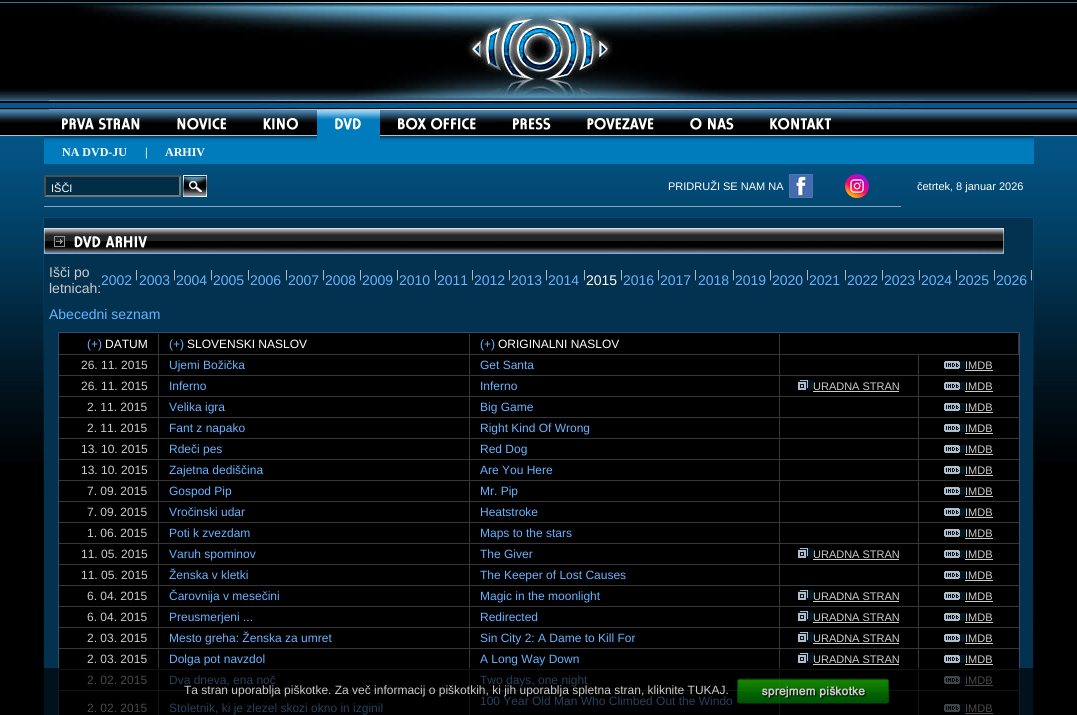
import math
import cairo

surface = cairo.ImageSurface(cairo.FORMAT_RGB24, 1077, 715)
c = cairo.Context(surface)
options = cairo.FontOptions()
options.set_hint_metrics(cairo.HINT_METRICS_OFF)
options.set_hint_style(cairo.HINT_STYLE_NONE)
c.set_font_options(options)
c.set_miter_limit(4)
def C(code):
 c.set_source_rgb(*(v / 255 for v in bytes.fromhex(code[-6:])))
def F(family, size, italic, bold):
 c.select_font_face(family, cairo.FONT_SLANT_ITALIC if italic else cairo.FONT_SLANT_NORMAL, cairo.FONT_WEIGHT_BOLD if bold else cairo.FONT_WEIGHT_NORMAL)
 c.set_font_size(size)
def T(x, y, s):
 c.move_to(x, y)
 c.show_text(s)
def R(x, y, w, h):
 c.rectangle(x, y, w, h)
 c.fill()
def I(path, x, y, w, h):
 c.save()
 c.set_source_surface(cairo.ImageSurface.create_from_png(path), x, y)
 c.rectangle(x, y, w, h)
 c.fill()
 c.restore()
C('000000')
c.paint()
I('1.png',0,1,1077,461)
I('2.png',49,0,980,110)
I('3.png',44,118,115,27)
I('4.png',159,115,86,30)
I('5.png',245,118,72,27)
I('6.png',317,110,63,35)
I('7.png',380,118,114,27)
I('8.png',494,118,75,27)
I('9.png',569,118,103,27)
I('10.png',672,118,80,27)
I('11.png',752,118,97,27)
I('12.png',849,132,185,13)
C('007cbc')
R(44,145,990,19)
F('Liberation Serif',12,0,1)
C('ffffff')
T(62,156,'NA DVD-JU')
T(145,156,'|')
T(165,156,'ARHIV')
C('022d47')
R(44,175,137,22)
C('4f4f4f')
c.new_path()
c.move_to(44,175)
c.line_to(181,175)
c.line_to(179,177)
c.line_to(46,177)
c.close_path()
c.fill()
C('767676')
c.new_path()
c.move_to(181,175)
c.line_to(181,197)
c.line_to(179,195)
c.line_to(179,177)
c.close_path()
c.fill()
c.new_path()
c.move_to(181,197)
c.line_to(44,197)
c.line_to(46,195)
c.line_to(179,195)
c.close_path()
c.fill()
C('4f4f4f')
c.new_path()
c.move_to(44,197)
c.line_to(44,175)
c.line_to(46,177)
c.line_to(46,195)
c.close_path()
c.fill()
F('Liberation Sans',11,0,0)
C('ffffff')
T(51,192,'IŠČI')
I('13.png',183,175,24,22)
T(668,190,'PRIDRUŽI SE NAM NA')
I('14.png',789,174,24,24)
I('15.png',845,174,24,24)
T(917,190,'četrtek, 8 januar 2026')
C('88a7bb')
R(44,206,857,1)
I('16.png',43,217,991,498)
C('02324f')
R(44,218,989,497)
I('17.png',44,228,960,26)
F('Liberation Sans',14,0,0)
C('cccccc')
T(49,277,'Išči po')
T(49,293,'letnicah:')
C('68b3ff')
T(101,285,'2002')
F('Liberation Sans',11,0,0)
C('cccccc')
T(135,278,'|')
F('Liberation Sans',14,0,0)
C('68b3ff')
T(139,285,'2003')
F('Liberation Sans',11,0,0)
C('cccccc')
T(173,278,'|')
F('Liberation Sans',14,0,0)
C('68b3ff')
T(176,285,'2004')
F('Liberation Sans',11,0,0)
C('cccccc')
T(210,278,'|')
F('Liberation Sans',14,0,0)
C('68b3ff')
T(213,285,'2005')
F('Liberation Sans',11,0,0)
C('cccccc')
T(247,278,'|')
F('Liberation Sans',14,0,0)
C('68b3ff')
T(250,285,'2006')
F('Liberation Sans',11,0,0)
C('cccccc')
T(285,278,'|')
F('Liberation Sans',14,0,0)
C('68b3ff')
T(288,285,'2007')
F('Liberation Sans',11,0,0)
C('cccccc')
T(322,278,'|')
F('Liberation Sans',14,0,0)
C('68b3ff')
T(325,285,'2008')
F('Liberation Sans',11,0,0)
C('cccccc')
T(359,278,'|')
F('Liberation Sans',14,0,0)
C('68b3ff')
T(362,285,'2009')
F('Liberation Sans',11,0,0)
C('cccccc')
T(396,278,'|')
F('Liberation Sans',14,0,0)
C('68b3ff')
T(399,285,'2010')
F('Liberation Sans',11,0,0)
C('cccccc')
T(434,278,'|')
F('Liberation Sans',14,0,0)
C('68b3ff')
T(437,285,'2011')
F('Liberation Sans',11,0,0)
C('cccccc')
T(471,278,'|')
F('Liberation Sans',14,0,0)
C('68b3ff')
T(474,285,'2012')
F('Liberation Sans',11,0,0)
C('cccccc')
T(508,278,'|')
F('Liberation Sans',14,0,0)
C('68b3ff')
T(511,285,'2013')
F('Liberation Sans',11,0,0)
C('cccccc')
T(545,278,'|')
F('Liberation Sans',14,0,0)
C('68b3ff')
T(548,285,'2014')
F('Liberation Sans',11,0,0)
C('cccccc')
T(583,278,'|')
F('Liberation Sans',14,0,0)
C('ffffff')
T(586,285,'2015')
F('Liberation Sans',11,0,0)
C('cccccc')
T(620,278,'|')
F('Liberation Sans',14,0,0)
C('68b3ff')
T(623,285,'2016')
F('Liberation Sans',11,0,0)
C('cccccc')
T(657,278,'|')
F('Liberation Sans',14,0,0)
C('68b3ff')
T(660,285,'2017')
F('Liberation Sans',11,0,0)
C('cccccc')
T(694,278,'|')
F('Liberation Sans',14,0,0)
C('68b3ff')
T(698,285,'2018')
F('Liberation Sans',11,0,0)
C('cccccc')
T(732,278,'|')
F('Liberation Sans',14,0,0)
C('68b3ff')
T(735,285,'2019')
F('Liberation Sans',11,0,0)
C('cccccc')
T(769,278,'|')
F('Liberation Sans',14,0,0)
C('68b3ff')
T(772,285,'2020')
F('Liberation Sans',11,0,0)
C('cccccc')
T(806,278,'|')
F('Liberation Sans',14,0,0)
C('68b3ff')
T(809,285,'2021')
F('Liberation Sans',11,0,0)
C('cccccc')
T(844,278,'|')
F('Liberation Sans',14,0,0)
C('68b3ff')
T(847,285,'2022')
F('Liberation Sans',11,0,0)
C('cccccc')
T(881,278,'|')
F('Liberation Sans',14,0,0)
C('68b3ff')
T(884,285,'2023')
F('Liberation Sans',11,0,0)
C('cccccc')
T(918,278,'|')
F('Liberation Sans',14,0,0)
C('68b3ff')
T(921,285,'2024')
F('Liberation Sans',11,0,0)
C('cccccc')
T(955,278,'|')
F('Liberation Sans',14,0,0)
C('68b3ff')
T(958,285,'2025')
F('Liberation Sans',11,0,0)
C('cccccc')
T(993,278,'|')
F('Liberation Sans',14,0,0)
C('68b3ff')
T(996,285,'2026')
F('Liberation Sans',11,0,0)
C('cccccc')
T(1030,278,'|')
F('Liberation Sans',14,0,0)
C('68b3ff')
T(49,319,'Abecedni seznam')
C('000000')
R(59,333,960,382)
C('324e6e')
R(58,332,962,1)
R(1019,332,1,383)
R(58,332,1,383)
C('373737')
R(158,334,1,381)
R(59,354,720,1)
F('Liberation Sans',12,0,0)
C('68b3ff')
T(87,348,'(+)')
C('ffffff')
T(105,348,'DATUM')
C('68b3ff')
T(169,348,'(+)')
C('ffffff')
T(187,348,'SLOVENSKI NASLOV')
C('373737')
R(469,334,1,21)
C('68b3ff')
T(480,348,'(+)')
C('ffffff')
T(498,348,'ORIGINALNI NASLOV')
C('373737')
R(1018,334,1,21)
R(779,354,240,1)
R(779,334,1,21)
R(59,375,720,1)
C('cccccc')
T(81,369,'26. 11. 2015')
C('68b3ff')
T(169,369,'Ujemi Božička')
C('373737')
R(469,355,1,21)
C('68b3ff')
T(480,369,'Get Santa')
C('373737')
R(918,355,1,360)
R(779,375,240,1)
R(779,355,1,21)
I('18.png',944,361,21,8)
F('Liberation Sans',11,0,0)
C('cccccc')
T(965,369,'IMDB')
R(965,370,28,1)
C('373737')
R(59,396,960,1)
F('Liberation Sans',12,0,0)
C('cccccc')
T(81,390,'26. 11. 2015')
C('68b3ff')
T(169,390,'Inferno')
C('373737')
R(469,376,1,21)
C('68b3ff')
T(480,390,'Inferno')
C('373737')
R(779,376,1,21)
I('19.png',798,380,15,10)
F('Liberation Sans',11,0,0)
C('cccccc')
T(813,390,'URADNA STRAN')
R(813,391,86,1)
I('18.png',944,382,21,8)
T(965,390,'IMDB')
R(965,391,28,1)
C('373737')
R(59,417,960,1)
F('Liberation Sans',12,0,0)
C('cccccc')
T(87,411,'2. 11. 2015')
C('68b3ff')
T(169,411,'Velika igra')
C('373737')
R(469,397,1,21)
C('68b3ff')
T(480,411,'Big Game')
C('373737')
R(779,397,1,21)
I('18.png',944,403,21,8)
F('Liberation Sans',11,0,0)
C('cccccc')
T(965,411,'IMDB')
R(965,412,28,1)
C('373737')
R(59,438,960,1)
F('Liberation Sans',12,0,0)
C('cccccc')
T(87,432,'2. 11. 2015')
C('68b3ff')
T(169,432,'Fant z napako')
C('373737')
R(469,418,1,21)
C('68b3ff')
T(480,432,'Right Kind Of Wrong')
C('373737')
R(779,418,1,21)
I('18.png',944,424,21,8)
F('Liberation Sans',11,0,0)
C('cccccc')
T(965,432,'IMDB')
R(965,433,28,1)
C('373737')
R(59,459,960,1)
F('Liberation Sans',12,0,0)
C('cccccc')
T(81,453,'13. 10. 2015')
C('68b3ff')
T(169,453,'Rdeči pes')
C('373737')
R(469,439,1,21)
C('68b3ff')
T(480,453,'Red Dog')
C('373737')
R(779,439,1,21)
I('18.png',944,445,21,8)
F('Liberation Sans',11,0,0)
C('cccccc')
T(965,453,'IMDB')
R(965,454,28,1)
C('373737')
R(59,480,960,1)
F('Liberation Sans',12,0,0)
C('cccccc')
T(81,474,'13. 10. 2015')
C('68b3ff')
T(169,474,'Zajetna dediščina')
C('373737')
R(469,460,1,21)
C('68b3ff')
T(480,474,'Are You Here')
C('373737')
R(779,460,1,21)
I('18.png',944,466,21,8)
F('Liberation Sans',11,0,0)
C('cccccc')
T(965,474,'IMDB')
R(965,475,28,1)
C('373737')
R(59,501,960,1)
F('Liberation Sans',12,0,0)
C('cccccc')
T(87,495,'7. 09. 2015')
C('68b3ff')
T(169,495,'Gospod Pip')
C('373737')
R(469,481,1,21)
C('68b3ff')
T(480,495,'Mr. Pip')
C('373737')
R(779,481,1,21)
I('18.png',944,487,21,8)
F('Liberation Sans',11,0,0)
C('cccccc')
T(965,495,'IMDB')
R(965,496,28,1)
C('373737')
R(59,522,960,1)
F('Liberation Sans',12,0,0)
C('cccccc')
T(87,516,'7. 09. 2015')
C('68b3ff')
T(169,516,'Vročinski udar')
C('373737')
R(469,502,1,21)
C('68b3ff')
T(480,516,'Heatstroke')
C('373737')
R(779,502,1,21)
I('18.png',944,508,21,8)
F('Liberation Sans',11,0,0)
C('cccccc')
T(965,516,'IMDB')
R(965,517,28,1)
C('373737')
R(59,543,960,1)
F('Liberation Sans',12,0,0)
C('cccccc')
T(87,537,'1. 06. 2015')
C('68b3ff')
T(169,537,'Poti k zvezdam')
C('373737')
R(469,523,1,21)
C('68b3ff')
T(480,537,'Maps to the stars')
C('373737')
R(779,523,1,21)
I('18.png',944,529,21,8)
F('Liberation Sans',11,0,0)
C('cccccc')
T(965,537,'IMDB')
R(965,538,28,1)
C('373737')
R(59,564,960,1)
F('Liberation Sans',12,0,0)
C('cccccc')
T(81,558,'11. 05. 2015')
C('68b3ff')
T(169,558,'Varuh spominov')
C('373737')
R(469,544,1,21)
C('68b3ff')
T(480,558,'The Giver')
C('373737')
R(779,544,1,21)
I('19.png',798,548,15,10)
F('Liberation Sans',11,0,0)
C('cccccc')
T(813,558,'URADNA STRAN')
R(813,559,86,1)
I('18.png',944,550,21,8)
T(965,558,'IMDB')
R(965,559,28,1)
C('373737')
R(59,585,960,1)
F('Liberation Sans',12,0,0)
C('cccccc')
T(81,579,'11. 05. 2015')
C('68b3ff')
T(169,579,'Ženska v kletki')
C('373737')
R(469,565,1,21)
C('68b3ff')
T(480,579,'The Keeper of Lost Causes')
C('373737')
R(779,565,1,21)
I('18.png',944,571,21,8)
F('Liberation Sans',11,0,0)
C('cccccc')
T(965,579,'IMDB')
R(965,580,28,1)
C('373737')
R(59,606,960,1)
F('Liberation Sans',12,0,0)
C('cccccc')
T(87,600,'6. 04. 2015')
C('68b3ff')
T(169,600,'Čarovnija v mesečini')
C('373737')
R(469,586,1,21)
C('68b3ff')
T(480,600,'Magic in the moonlight')
C('373737')
R(779,586,1,21)
I('19.png',798,590,15,10)
F('Liberation Sans',11,0,0)
C('cccccc')
T(813,600,'URADNA STRAN')
R(813,601,86,1)
I('18.png',944,592,21,8)
T(965,600,'IMDB')
R(965,601,28,1)
C('373737')
R(59,627,960,1)
F('Liberation Sans',12,0,0)
C('cccccc')
T(87,621,'6. 04. 2015')
C('68b3ff')
T(169,621,'Preusmerjeni ...')
C('373737')
R(469,607,1,21)
C('68b3ff')
T(480,621,'Redirected')
C('373737')
R(779,607,1,21)
I('19.png',798,611,15,10)
F('Liberation Sans',11,0,0)
C('cccccc')
T(813,621,'URADNA STRAN')
R(813,622,86,1)
I('18.png',944,613,21,8)
T(965,621,'IMDB')
R(965,622,28,1)
C('373737')
R(59,648,960,1)
F('Liberation Sans',12,0,0)
C('cccccc')
T(87,642,'2. 03. 2015')
C('68b3ff')
T(169,642,'Mesto greha: Ženska za umret')
C('373737')
R(469,628,1,21)
C('68b3ff')
T(480,642,'Sin City 2: A Dame to Kill For')
C('373737')
R(779,628,1,21)
I('19.png',798,632,15,10)
F('Liberation Sans',11,0,0)
C('cccccc')
T(813,642,'URADNA STRAN')
R(813,643,86,1)
I('18.png',944,634,21,8)
T(965,642,'IMDB')
R(965,643,28,1)
C('373737')
R(59,669,960,1)
F('Liberation Sans',12,0,0)
C('cccccc')
T(87,663,'2. 03. 2015')
C('68b3ff')
T(169,663,'Dolga pot navzdol')
C('373737')
R(469,649,1,21)
C('68b3ff')
T(480,663,'A Long Way Down')
C('373737')
R(779,649,1,21)
I('19.png',798,653,15,10)
F('Liberation Sans',11,0,0)
C('cccccc')
T(813,663,'URADNA STRAN')
R(813,664,86,1)
I('18.png',944,655,21,8)
T(965,663,'IMDB')
R(965,664,28,1)
C('373737')
R(59,690,960,1)
F('Liberation Sans',12,0,0)
C('cccccc')
T(87,684,'2. 02. 2015')
C('68b3ff')
T(169,684,'Dva dneva, ena noč')
C('373737')
R(469,670,1,45)
C('68b3ff')
T(480,684,'Two days, one night')
C('373737')
R(779,670,1,45)
I('18.png',944,676,21,8)
F('Liberation Sans',11,0,0)
C('cccccc')
T(965,684,'IMDB')
R(965,685,28,1)
F('Liberation Sans',12,0,0)
C('68b3ff')
T(480,705,'100 Year Old Man Who Climbed Out the Windo')
C('cccccc')
T(87,712,'2. 02. 2015')
C('68b3ff')
T(169,712,'Stoletnik, ki je zlezel skozi okno in izginil')
I('18.png',944,704,21,8)
F('Liberation Sans',11,0,0)
C('cccccc')
T(965,712,'IMDB')
R(965,713,28,1)
c.set_source_rgba(0,0,0,0.64)
R(43,668,991,47)
F('Liberation Sans',12,0,0)
C('cccccc')
T(184,694,'Ta stran uporablja piškotke. Za več informacij o piškotkih, ki jih uporablja spletna stran, kliknite TUKAJ.')
I('20.png',737,678,152,26)
surface.write_to_png('o.png')
